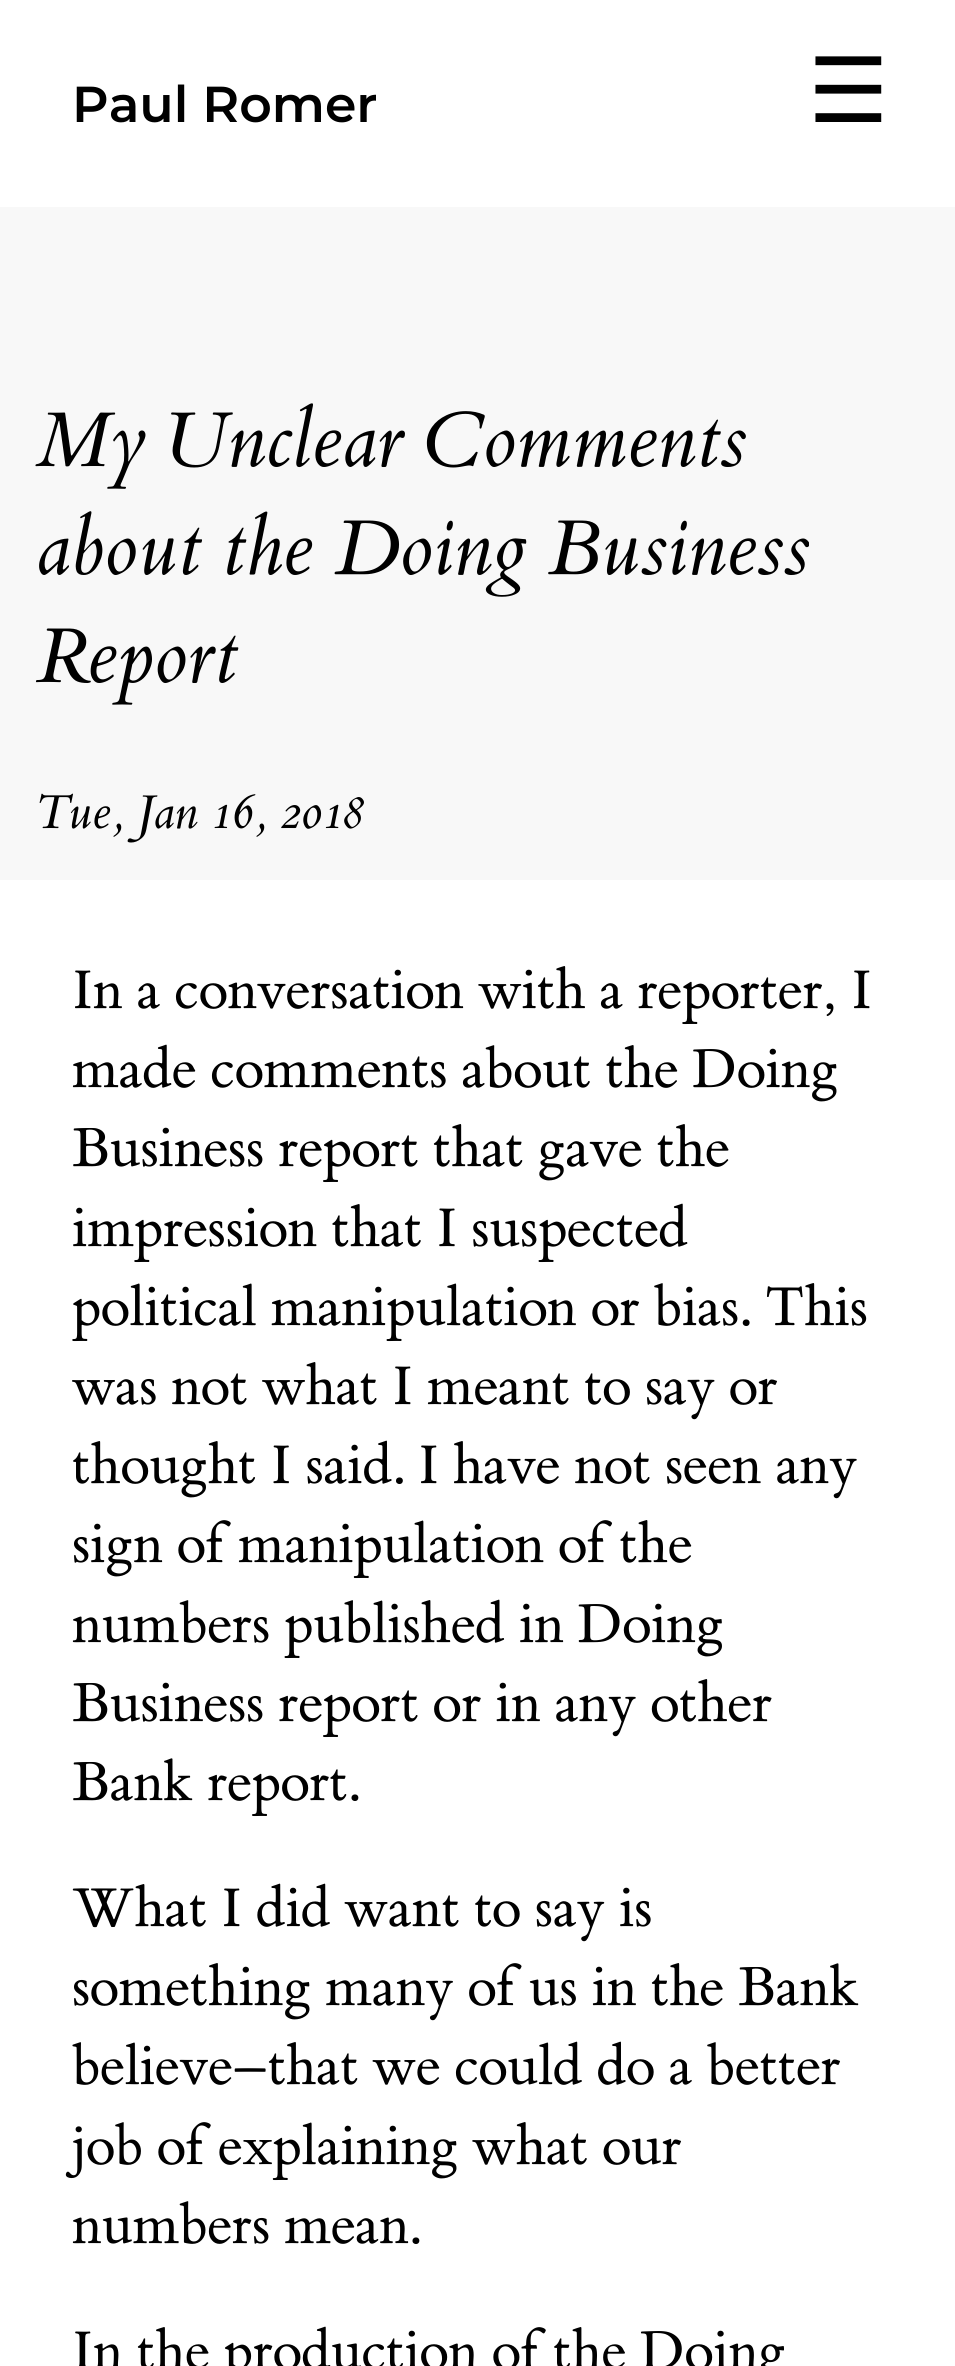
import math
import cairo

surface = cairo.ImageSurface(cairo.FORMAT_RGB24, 955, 2366)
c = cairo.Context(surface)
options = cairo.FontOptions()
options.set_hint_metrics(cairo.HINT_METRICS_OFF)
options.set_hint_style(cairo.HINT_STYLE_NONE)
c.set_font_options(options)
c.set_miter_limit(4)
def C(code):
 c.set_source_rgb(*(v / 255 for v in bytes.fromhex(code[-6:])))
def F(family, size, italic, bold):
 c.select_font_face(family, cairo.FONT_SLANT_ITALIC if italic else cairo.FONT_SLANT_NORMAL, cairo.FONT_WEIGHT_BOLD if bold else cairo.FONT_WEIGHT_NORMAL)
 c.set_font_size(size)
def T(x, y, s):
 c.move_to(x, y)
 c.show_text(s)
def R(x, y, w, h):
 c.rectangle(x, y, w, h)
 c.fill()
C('ffffff')
c.paint()
F('Montserrat SemiBold',50.5,0,0)
C('000000')
T(72,122,'Paul Romer')
F('DejaVu Sans',90,0,0)
T(808,122,'☰')
C('f8f8f8')
R(0,207,955,673)
F('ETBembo',82.75,1,0)
C('000000')
T(36,466,'My Unclear Comments')
T(36,574,'about the Doing Business')
T(36,682,'Report')
F('ETBembo',50.5,1,0)
T(36,828,'Tue, Jan 16, 2018')
F('ETBembo',57.6,0,0)
T(72,1008,'In a conversation with a reporter, I')
T(72,1087,'made comments about the Doing')
T(72,1166,'Business report that gave the')
T(72,1246,'impression that I suspected')
T(72,1325,'political manipulation or bias. This')
T(72,1404,'was not what I meant to say or')
T(72,1483,'thought I said. I have not seen any')
T(72,1562,'sign of manipulation of the')
T(72,1642,'numbers published in Doing')
T(72,1721,'Business report or in any other')
T(72,1800,'Bank report.')
T(72,1926,'What I did want to say is')
T(72,2005,'something many of us in the Bank')
T(72,2084,'believe–that we could do a better')
T(72,2164,'job of explaining what our')
T(72,2243,'numbers mean.')
T(72,2369,'In the production of the Doing')
surface.write_to_png('o.png')
